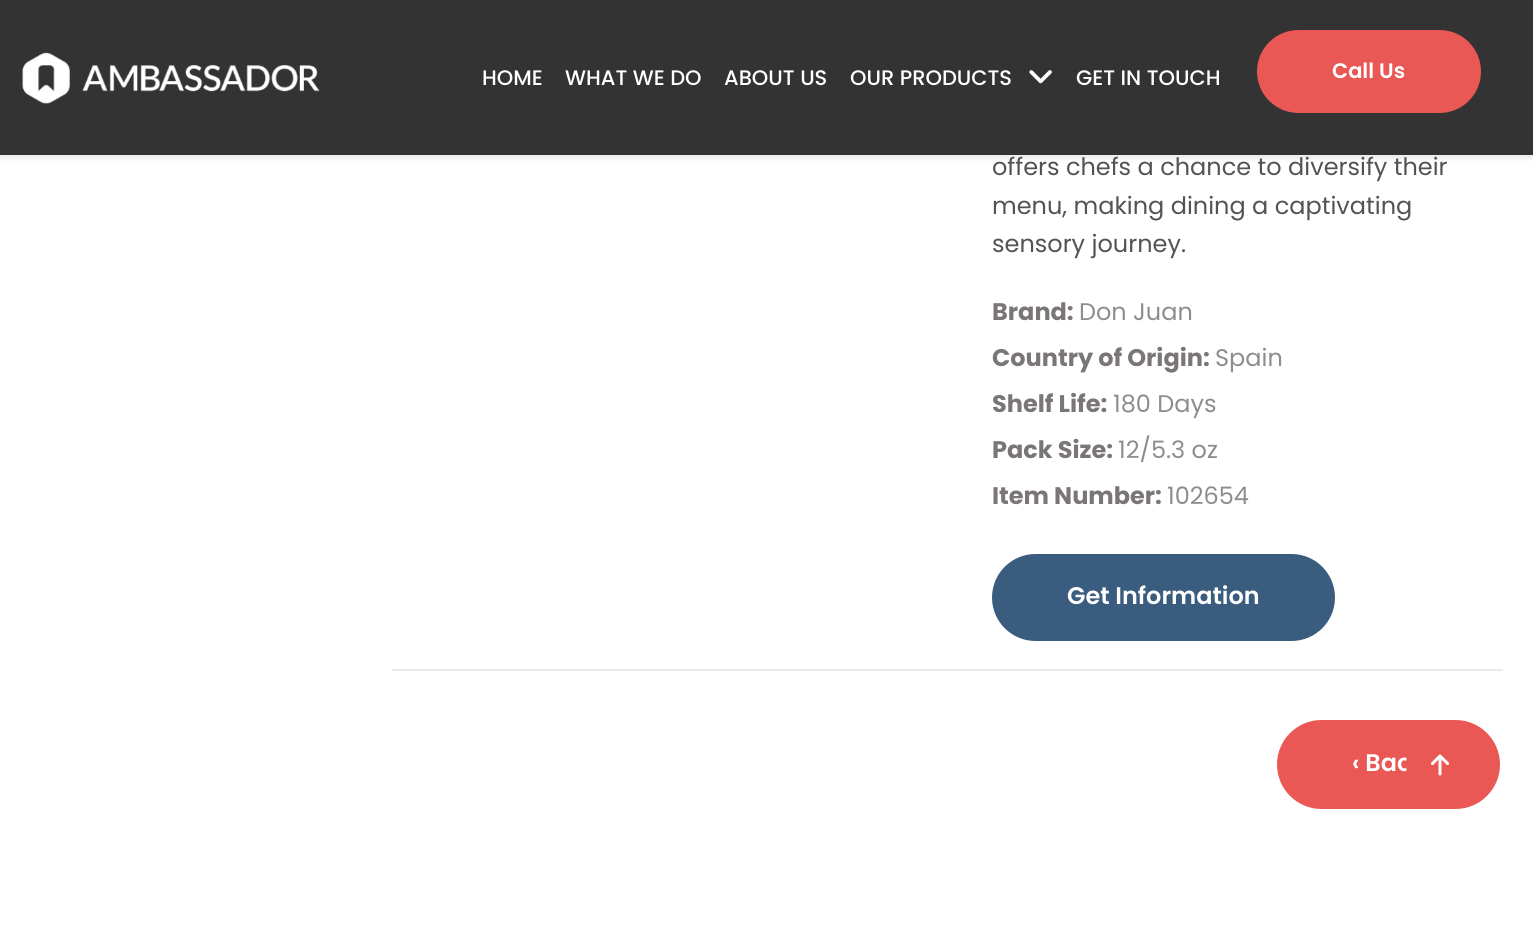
import math
import cairo

surface = cairo.ImageSurface(cairo.FORMAT_RGB24, 1533, 948)
c = cairo.Context(surface)
options = cairo.FontOptions()
options.set_hint_metrics(cairo.HINT_METRICS_OFF)
options.set_hint_style(cairo.HINT_STYLE_NONE)
c.set_font_options(options)
c.set_miter_limit(4)
def C(code):
 c.set_source_rgb(*(v / 255 for v in bytes.fromhex(code[-6:])))
def F(family, size, italic, bold):
 c.select_font_face(family, cairo.FONT_SLANT_ITALIC if italic else cairo.FONT_SLANT_NORMAL, cairo.FONT_WEIGHT_BOLD if bold else cairo.FONT_WEIGHT_NORMAL)
 c.set_font_size(size)
def T(x, y, s):
 c.move_to(x, y)
 c.show_text(s)
def R(x, y, w, h):
 c.rectangle(x, y, w, h)
 c.fill()
def Q(x, y, w, h, r):
 c.new_sub_path()
 for i, (u, v) in enumerate([(x + w - r, y + h - r), (x + r, y + h - r), (x + r, y + r), (x + w - r, y + r)]):
  c.arc(u, v, r, i * math.pi / 2, (i + 1) * math.pi / 2)
 c.close_path()
def S(x, y, w, h, r, blur, alpha):
 c.push_group_with_content(cairo.CONTENT_ALPHA)
 c.set_operator(cairo.OPERATOR_SOURCE)
 for i in range(15, -16, -2):
  e = blur * i / 6
  if min(w, h) + 2 * e > 0:
   c.set_source_rgba(0, 0, 0, alpha * math.erfc((i - 1) / 8.5) / 2)
   Q(x - e, y - e, w + 2 * e, h + 2 * e, max(0, min(r + e + blur * .6, min(w, h) / 2 + e)))
   c.fill()
 c.mask(c.pop_group())
def I(path, x, y, w, h):
 c.save()
 c.set_source_surface(cairo.ImageSurface.create_from_png(path), x, y)
 c.rectangle(x, y, w, h)
 c.fill()
 c.restore()
C('ffffff')
c.paint()
C('34373e')
S(-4,-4,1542,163,0,2,.1)
C('333333')
R(0,0,1533,155)
I('1.png',22,52,298,52)
F('Poppins Medium',21,0,0)
C('ffffff')
T(482,85,'HOME')
T(565,85,'WHAT WE DO')
T(724,85,'ABOUT US')
T(850,85,'OUR PRODUCTS')
I('2.png',1029,70,23,14)
T(1076,85,'GET IN TOUCH')
C('ea5855')
Q(1257,30,224,83,41.5)
c.fill()
F('Poppins SemiBold',21,0,0)
C('ffffff')
T(1332,78,'Call Us')
C('eaeaea')
R(392,669,1111,2)
F('Poppins',24,0,0)
C('535353')
T(992,175,'offers chefs a chance to diversify their')
T(992,214,'menu, making dining a captivating')
T(992,252,'sensory journey.')
F('Poppins',24,0,1)
C('7a7676')
T(992,320,'Brand:')
F('Poppins',24,0,0)
C('918c8c')
T(1079,320,'Don Juan')
F('Poppins',24,0,1)
C('7a7676')
T(992,366,'Country of Origin:')
F('Poppins',24,0,0)
C('918c8c')
T(1215,366,'Spain')
F('Poppins',24,0,1)
C('7a7676')
T(992,412,'Shelf Life:')
F('Poppins',24,0,0)
C('918c8c')
T(1113,412,'180 Days')
F('Poppins',24,0,1)
C('7a7676')
T(992,458,'Pack Size:')
F('Poppins',24,0,0)
C('918c8c')
T(1118,458,'12/5.3 oz')
F('Poppins',24,0,1)
C('7a7676')
T(992,504,'Item Number:')
F('Poppins',24,0,0)
C('918c8c')
T(1167,504,'102654')
C('395c7f')
Q(992,554,343,87,43.5)
c.fill()
F('Poppins SemiBold',24,0,0)
C('ffffff')
T(1067,604,'Get Information')
C('ea5855')
Q(1277,720,223,89,44.5)
c.fill()
C('ffffff')
T(1352,771,'‹ Bac')
C('ea5855')
c.new_path()
c.arc(1439.5,764.5,33.5,0,2 * math.pi)
c.fill()
I('3.png',1431,754,18,22)
surface.write_to_png('o.png')
